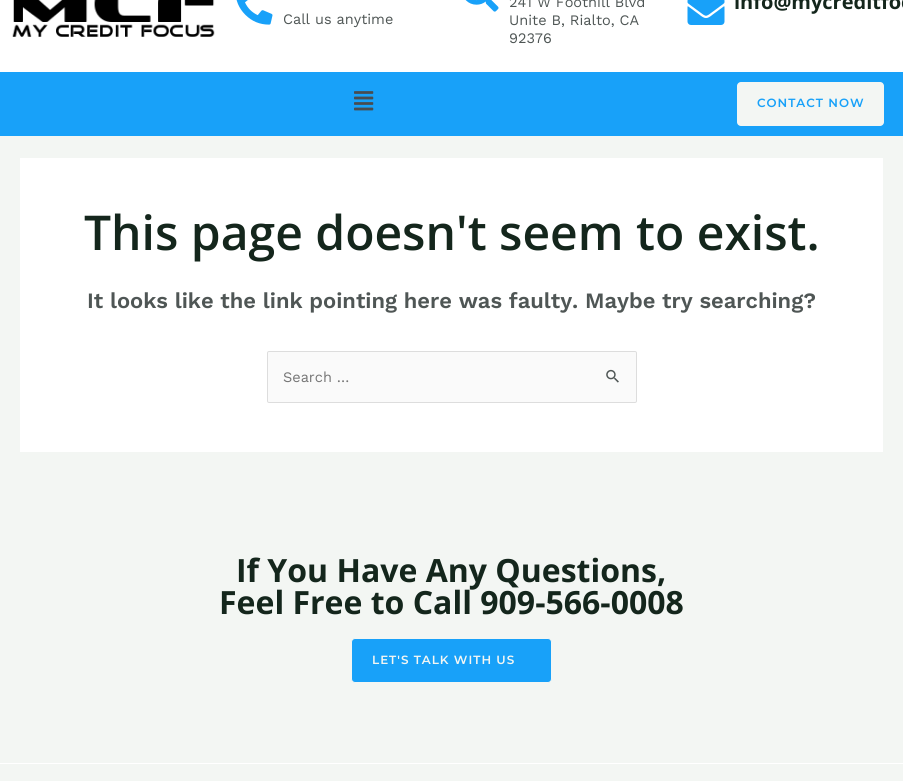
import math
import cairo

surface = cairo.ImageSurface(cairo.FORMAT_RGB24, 903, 781)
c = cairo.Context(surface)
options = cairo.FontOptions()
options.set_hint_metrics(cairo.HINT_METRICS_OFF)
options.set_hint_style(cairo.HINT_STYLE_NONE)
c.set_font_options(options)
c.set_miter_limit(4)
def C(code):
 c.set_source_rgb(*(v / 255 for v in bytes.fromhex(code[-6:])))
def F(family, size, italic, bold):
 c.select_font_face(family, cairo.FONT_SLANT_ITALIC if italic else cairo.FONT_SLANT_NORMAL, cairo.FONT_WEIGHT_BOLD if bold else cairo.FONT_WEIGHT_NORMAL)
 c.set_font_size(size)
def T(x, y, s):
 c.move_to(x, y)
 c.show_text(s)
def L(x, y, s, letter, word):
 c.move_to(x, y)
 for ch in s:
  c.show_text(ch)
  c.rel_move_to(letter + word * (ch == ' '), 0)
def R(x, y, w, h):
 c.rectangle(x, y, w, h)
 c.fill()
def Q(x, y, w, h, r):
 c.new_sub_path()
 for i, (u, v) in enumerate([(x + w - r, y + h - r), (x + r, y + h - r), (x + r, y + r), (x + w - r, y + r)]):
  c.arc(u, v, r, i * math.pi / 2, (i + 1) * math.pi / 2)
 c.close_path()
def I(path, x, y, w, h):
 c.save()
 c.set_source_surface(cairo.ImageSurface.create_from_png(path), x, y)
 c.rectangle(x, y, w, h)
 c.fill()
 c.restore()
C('f3f6f3')
c.paint()
C('ffffff')
R(0,0,903,72)
I('1.png',12,0,203,37)
I('2.png',465,0,34,12)
F('Work Sans',14.5,0,0)
C('4f5655')
T(509,7,'241 W Foothill Blvd')
T(509,25,'Unite B, Rialto, CA')
T(509,43,'92376')
I('3.png',687,0,38,25)
F('Open Sans',20,0,1)
C('14261c')
T(734,9,'info@mycreditfoc')
I('4.png',236,0,37,25)
F('Work Sans',14.5,0,0)
C('4f5655')
T(283,24,'Call us anytime')
C('18a1f9')
R(0,72,903,64)
I('5.png',354,91,20,20)
C('f3f6f3')
Q(737,82,147,44,4)
c.fill()
F('Montserrat Thin',11.9,0,0)
C('18a1f9')
L(757,107,'CONTACT NOW',1,0)
C('ffffff')
R(20,158,863,294)
F('Open Sans SemiBold',48,0,0)
C('14261c')
T(84,250,'This page doesn\'t seem to exist.')
F('Work Sans SemiBold',21.9,0,0)
C('4f5655')
T(87,308,'It looks like the link pointing here was faulty. Maybe try searching?')
C('fafafa')
Q(267.5,351.5,369,51,1.5)
c.fill_preserve()
C('dddddd')
c.set_line_width(1)
c.stroke()
F('Work Sans',14.5,0,0)
C('757575')
T(283,382,'Search …')
I('6.png',606,369,13,14)
F('Open Sans',32,0,1)
C('14261c')
T(236,582,'If You Have Any Questions,')
T(219,614,'Feel Free to Call 909-566-0008')
C('18a1f9')
Q(351.5,638.5,200,44,3.5)
c.fill_preserve()
C('f3f6f3')
c.stroke()
F('Montserrat Thin',11.9,0,0)
L(372,664,'LET\'S TALK WITH US',1,0)
C('ffffff')
R(0,763,903,1)
surface.write_to_png('o.png')
